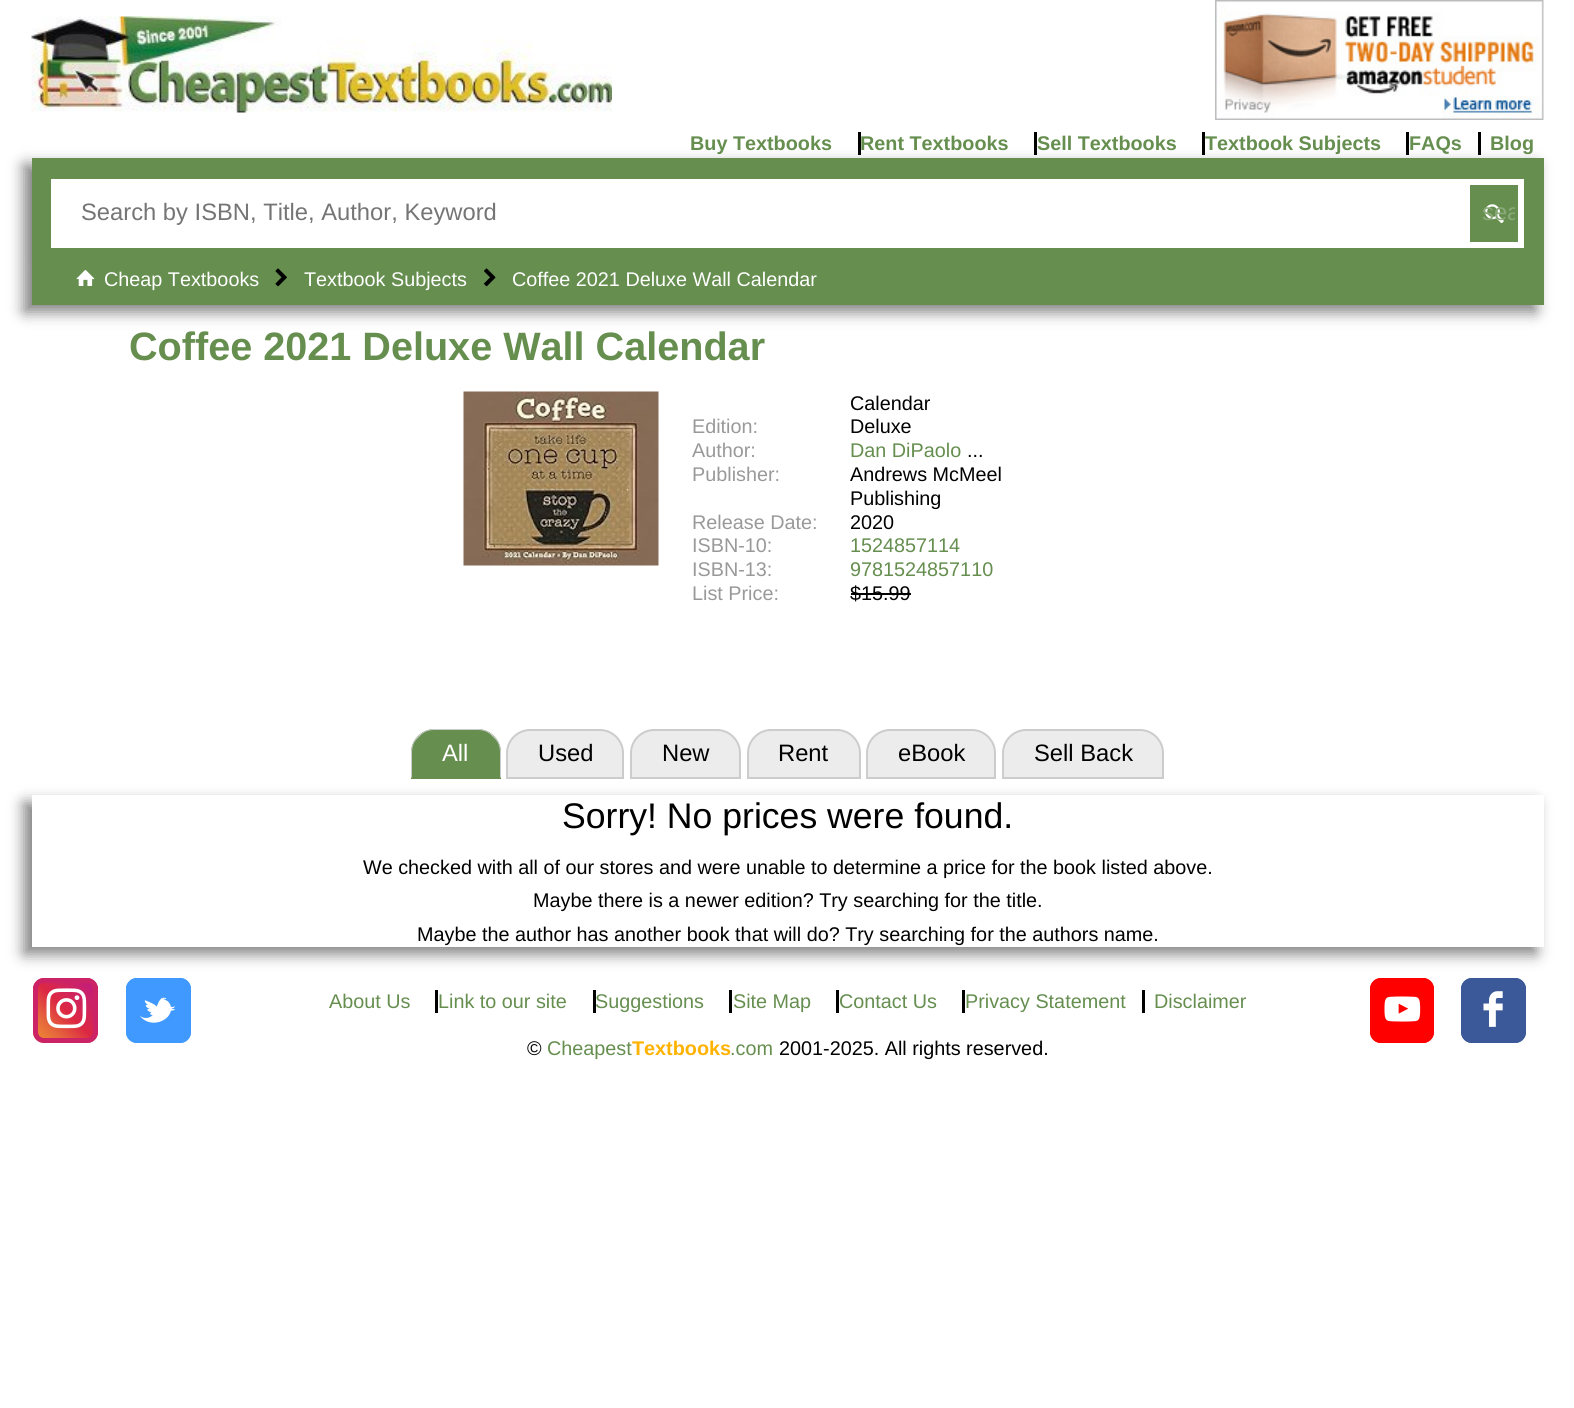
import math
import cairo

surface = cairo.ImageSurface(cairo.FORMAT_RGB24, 1574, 1408)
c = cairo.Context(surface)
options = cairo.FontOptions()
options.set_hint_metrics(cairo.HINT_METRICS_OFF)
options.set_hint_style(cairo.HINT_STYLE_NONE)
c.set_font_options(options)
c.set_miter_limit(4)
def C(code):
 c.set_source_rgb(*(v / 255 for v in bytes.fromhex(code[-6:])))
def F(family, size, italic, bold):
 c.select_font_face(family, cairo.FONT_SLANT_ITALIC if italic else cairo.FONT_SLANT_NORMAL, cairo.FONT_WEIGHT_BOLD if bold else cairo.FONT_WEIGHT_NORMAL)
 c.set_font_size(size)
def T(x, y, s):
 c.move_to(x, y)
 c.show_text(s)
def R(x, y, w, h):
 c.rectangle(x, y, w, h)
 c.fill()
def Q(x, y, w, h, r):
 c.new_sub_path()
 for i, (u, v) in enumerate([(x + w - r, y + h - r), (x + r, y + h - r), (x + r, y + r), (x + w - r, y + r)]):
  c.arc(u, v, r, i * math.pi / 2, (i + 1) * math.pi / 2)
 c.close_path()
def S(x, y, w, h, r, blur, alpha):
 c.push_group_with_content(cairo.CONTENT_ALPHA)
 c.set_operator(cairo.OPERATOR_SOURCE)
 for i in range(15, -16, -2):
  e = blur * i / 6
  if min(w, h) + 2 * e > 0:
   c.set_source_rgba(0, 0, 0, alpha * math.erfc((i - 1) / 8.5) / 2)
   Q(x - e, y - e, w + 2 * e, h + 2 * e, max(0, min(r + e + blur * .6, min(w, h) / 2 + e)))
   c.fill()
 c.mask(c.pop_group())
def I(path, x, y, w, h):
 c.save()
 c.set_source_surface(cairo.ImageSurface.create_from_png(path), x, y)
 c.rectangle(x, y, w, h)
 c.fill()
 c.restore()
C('ffffff')
c.paint()
I('1.png',31,16,581,97)
I('2.png',1215,0,329,120)
C('000000')
S(24,165,1512,147,0,7.5,.5)
F('Liberation Sans',19.8,0,1)
C('658e4f')
T(690,150,'Buy Textbooks')
T(860,150,'Rent Textbooks')
C('000000')
R(858,132,3,23)
C('658e4f')
T(1037,150,'Sell Textbooks')
C('000000')
R(1034,132,3,23)
C('658e4f')
T(1205,150,'Textbook Subjects')
C('000000')
R(1202,132,3,23)
C('658e4f')
T(1409,150,'FAQs')
C('000000')
R(1406,132,3,23)
C('658e4f')
T(1490,150,'Blog')
C('000000')
R(1478,132,3,23)
C('000000')
S(44,186,1473,69,0,7.5,.5)
C('658e4f')
R(32,158,1512,147)
C('ffffff')
R(51,179,1473,69)
F('Liberation Sans',23.75,0,0)
C('757575')
T(81,220,'Search by ISBN, Title, Author, Keyword')
C('658e4f')
R(1470,185,48,57)
I('3.png',1485,204,19,20)
c.save()
c.rectangle(1473,188,42,51)
c.clip()
C('8aa979')
T(1482,220,'sea')
c.restore()
I('4.png',76,270,19,16)
F('Liberation Sans',19.8,0,0)
C('ffffff')
T(104,286,'Cheap Textbooks')
I('5.png',275,268,12,19)
T(304,286,'Textbook Subjects')
I('6.png',484,268,12,19)
T(512,286,'Coffee 2021 Deluxe Wall Calendar')
F('Liberation Sans',39.6,0,1)
C('658e4f')
T(129,360,'Coffee 2021 Deluxe Wall Calendar')
I('7.png',463,391,196,175)
F('Liberation Sans',19.8,0,0)
C('000000')
T(850,410,'Calendar')
C('999999')
T(692,433,'Edition:')
C('000000')
T(850,433,'Deluxe')
C('999999')
T(692,457,'Author:')
C('658e4f')
T(850,457,'Dan DiPaolo')
C('000000')
T(967,457,'...')
C('999999')
T(692,481,'Publisher:')
C('000000')
T(850,481,'Andrews McMeel')
T(850,505,'Publishing')
C('999999')
T(692,529,'Release Date:')
C('000000')
T(850,529,'2020')
C('999999')
T(692,552,'ISBN-10:')
C('658e4f')
T(850,552,'1524857114')
C('999999')
T(692,576,'ISBN-13:')
C('658e4f')
T(850,576,'9781524857110')
C('999999')
T(692,600,'List Price:')
C('000000')
T(850,600,'$15.99')
R(851,593,60,2)
C('658e4f')
c.new_path()
c.move_to(435,729)
c.line_to(477,729)
c.curve_to(490.5,729,501,739.5,501,753)
c.line_to(501,779)
c.line_to(411,779)
c.line_to(411,753)
c.curve_to(411,739.5,421.5,729,435,729)
c.close_path()
c.fill()
C('cccccc')
c.new_path()
c.move_to(435,729)
c.curve_to(428,729,422,732,418,736)
c.line_to(419,737)
c.curve_to(423,732,428,730,435,730)
c.line_to(477,730)
c.curve_to(484,730,489,732,493,737)
c.line_to(494,736)
c.curve_to(490,732,484,729,477,729)
c.close_path()
c.fill()
c.new_path()
c.move_to(501,778)
c.line_to(501,753)
c.curve_to(501,746,498,740,494,736)
c.line_to(493,737)
c.curve_to(498,741,500,746,500,753)
c.line_to(500,777)
c.close_path()
c.fill()
c.new_path()
c.move_to(411,753)
c.line_to(411,778)
c.line_to(412,777)
c.line_to(412,753)
c.curve_to(412,746,414,741,419,737)
c.line_to(418,736)
c.curve_to(414,740,411,746,411,753)
c.close_path()
c.fill()
F('Liberation Sans',23.75,0,0)
C('ffffff')
T(442,761,'All')
C('ececec')
c.new_path()
c.move_to(530,730)
c.line_to(600,730)
c.curve_to(612.5,730,623,740.5,623,753)
c.line_to(623,778)
c.line_to(507,778)
c.line_to(507,753)
c.curve_to(507,740.5,517.5,730,530,730)
c.close_path()
c.fill_preserve()
C('cccccc')
c.stroke()
C('000000')
T(538,761,'Used')
C('ececec')
c.new_path()
c.move_to(654,730)
c.line_to(717,730)
c.curve_to(729.5,730,740,740.5,740,753)
c.line_to(740,778)
c.line_to(631,778)
c.line_to(631,753)
c.curve_to(631,740.5,641.5,730,654,730)
c.close_path()
c.fill_preserve()
C('cccccc')
c.stroke()
C('000000')
T(662,761,'New')
C('ececec')
c.new_path()
c.move_to(771,730)
c.line_to(837,730)
c.curve_to(849.5,730,860,740.5,860,753)
c.line_to(860,778)
c.line_to(748,778)
c.line_to(748,753)
c.curve_to(748,740.5,758.5,730,771,730)
c.close_path()
c.fill_preserve()
C('cccccc')
c.stroke()
C('000000')
T(778,761,'Rent')
C('ececec')
c.new_path()
c.move_to(890,730)
c.line_to(972,730)
c.curve_to(984.5,730,995,740.5,995,753)
c.line_to(995,778)
c.line_to(867,778)
c.line_to(867,753)
c.curve_to(867,740.5,877.5,730,890,730)
c.close_path()
c.fill_preserve()
C('cccccc')
c.stroke()
C('000000')
T(898,761,'eBook')
C('ececec')
c.new_path()
c.move_to(1026,730)
c.line_to(1140,730)
c.curve_to(1152.5,730,1163,740.5,1163,753)
c.line_to(1163,778)
c.line_to(1003,778)
c.line_to(1003,753)
c.curve_to(1003,740.5,1013.5,730,1026,730)
c.close_path()
c.fill_preserve()
C('cccccc')
c.stroke()
C('000000')
T(1034,761,'Sell Back')
c.save()
c.set_fill_rule(cairo.FILL_RULE_EVEN_ODD)
c.new_path()
c.move_to(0,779)
c.line_to(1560,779)
c.line_to(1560,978)
c.line_to(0,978)
c.close_path()
c.move_to(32,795)
c.line_to(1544,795)
c.line_to(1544,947)
c.line_to(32,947)
c.close_path()
c.clip()
C('000000')
S(24,803,1512,151,0,7.5,.5)
c.restore()
F('Liberation Sans',35.6,0,0)
T(562,828,'Sorry! No prices were found.')
F('Liberation Sans',19.8,0,0)
T(363,874,'We checked with all of our stores and were unable to determine a price for the book listed above.')
T(533,907,'Maybe there is a newer edition? Try searching for the title.')
T(417,941,'Maybe the author has another book that will do? Try searching for the authors name.')
gradient = cairo.LinearGradient(33,1043,98,978)
gradient.add_color_stop_rgba(0,0.941,0.58,0.2,1)
gradient.add_color_stop_rgba(.25,0.902,0.408,0.235,1)
gradient.add_color_stop_rgba(.5,0.863,0.153,0.263,1)
gradient.add_color_stop_rgba(.75,0.8,0.137,0.4,1)
gradient.add_color_stop_rgba(1,0.737,0.094,0.533,1)
c.set_source(gradient)
Q(33,978,65,65,11)
c.fill()
I('8.png',46,988,41,41)
Q(35.5,980.5,60,60,8.5)
C('cc2366')
c.set_line_width(5)
c.stroke()
C('4099ff')
Q(126,978,65,65,11)
c.fill()
I('9.png',139,997,37,26)
Q(128.5,980.5,60,60,8.5)
c.stroke()
C('ff0000')
Q(1370,978,64,65,11)
c.fill()
I('10.png',1384,996,37,26)
Q(1372.5,980.5,59,60,8.5)
c.stroke()
C('3b5998')
Q(1461,978,65,65,11)
c.fill()
I('11.png',1483,991,20,36)
Q(1463.5,980.5,60,60,8.5)
c.stroke()
C('658e4f')
T(329,1008,'About Us')
T(438,1008,'Link to our site')
C('000000')
R(435,990,3,23)
C('658e4f')
T(595,1008,'Suggestions')
C('000000')
R(593,990,3,23)
C('658e4f')
T(733,1008,'Site Map')
C('000000')
R(729,990,3,23)
C('658e4f')
T(839,1008,'Contact Us')
C('000000')
R(836,990,3,23)
C('658e4f')
T(965,1008,'Privacy Statement')
C('000000')
R(962,990,3,23)
C('658e4f')
T(1154,1008,'Disclaimer')
C('000000')
R(1142,990,3,23)
T(527,1055,'©')
C('658e4f')
T(547,1055,'Cheapest')
F('Liberation Sans',19.8,0,1)
C('ffb300')
T(632,1055,'Textbooks')
F('Liberation Sans',19.8,0,0)
C('658e4f')
T(730,1055,'.com')
C('000000')
T(779,1055,'2001-2025. All rights reserved.')
surface.write_to_png('o.png')
